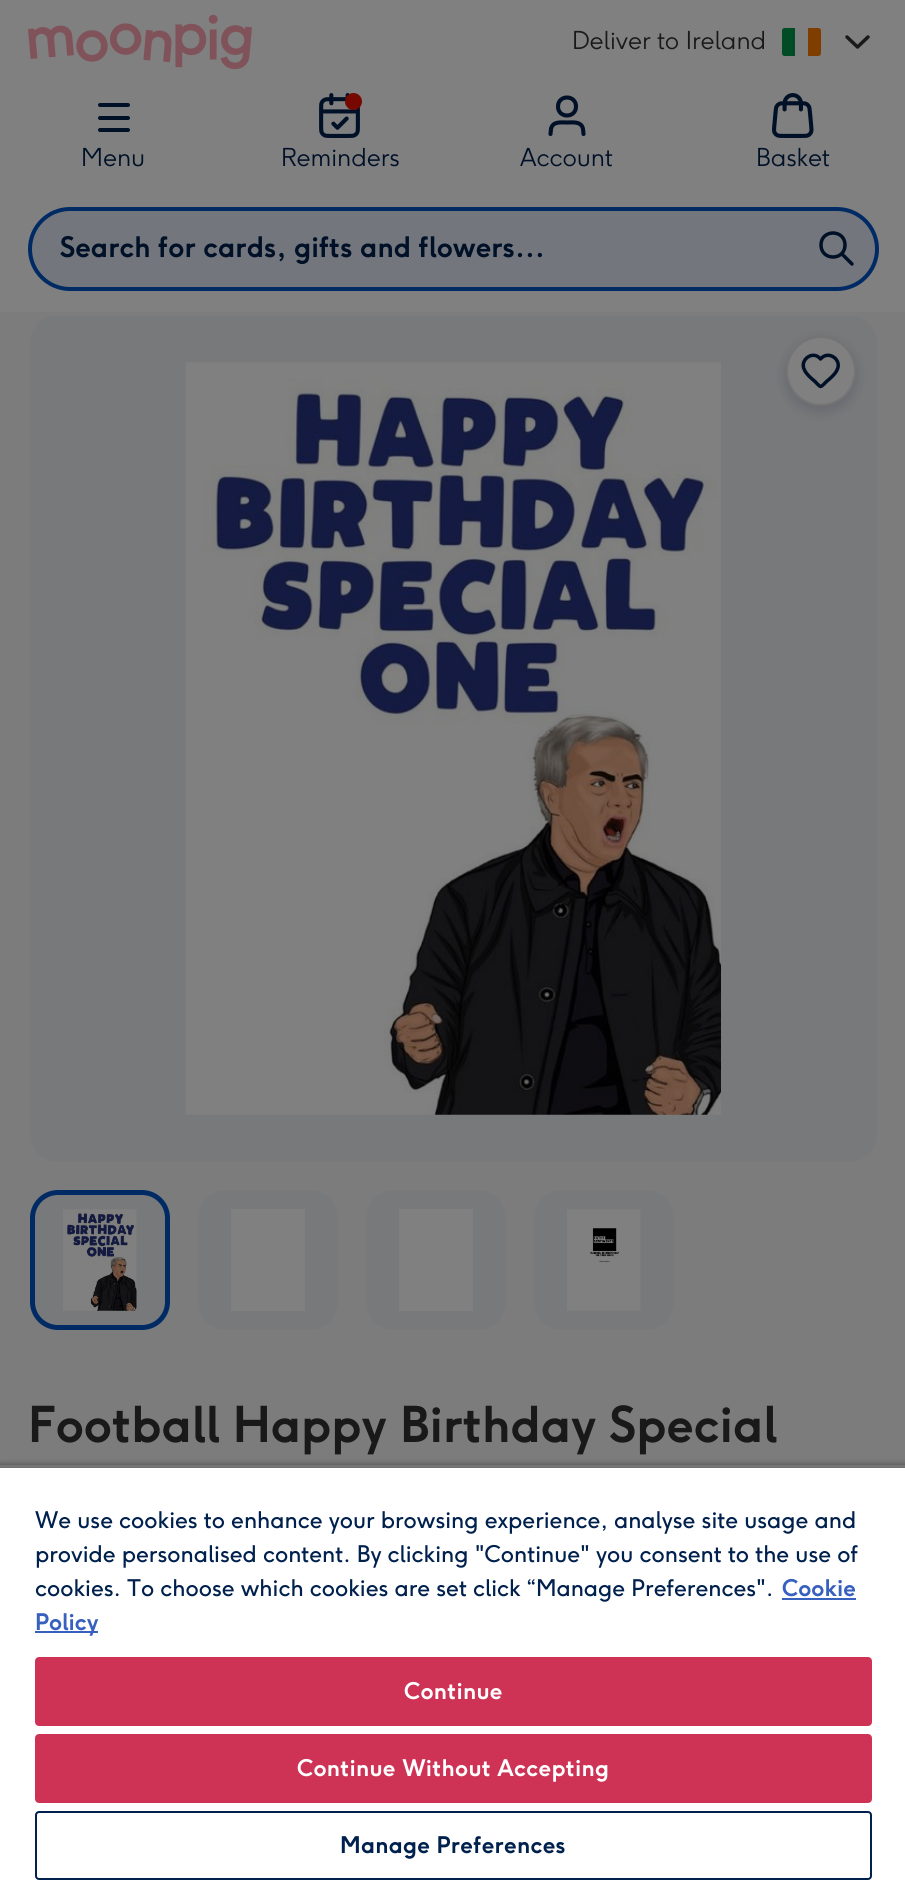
import math
import cairo

surface = cairo.ImageSurface(cairo.FORMAT_RGB24, 905, 1887)
c = cairo.Context(surface)
options = cairo.FontOptions()
options.set_hint_metrics(cairo.HINT_METRICS_OFF)
options.set_hint_style(cairo.HINT_STYLE_NONE)
c.set_font_options(options)
c.set_miter_limit(4)
def C(code):
 c.set_source_rgb(*(v / 255 for v in bytes.fromhex(code[-6:])))
def F(family, size, italic, bold):
 c.select_font_face(family, cairo.FONT_SLANT_ITALIC if italic else cairo.FONT_SLANT_NORMAL, cairo.FONT_WEIGHT_BOLD if bold else cairo.FONT_WEIGHT_NORMAL)
 c.set_font_size(size)
def T(x, y, s):
 c.move_to(x, y)
 c.show_text(s)
def L(x, y, s, letter, word):
 c.move_to(x, y)
 for ch in s:
  c.show_text(ch)
  c.rel_move_to(letter + word * (ch == ' '), 0)
def R(x, y, w, h):
 c.rectangle(x, y, w, h)
 c.fill()
def Q(x, y, w, h, r):
 c.new_sub_path()
 for i, (u, v) in enumerate([(x + w - r, y + h - r), (x + r, y + h - r), (x + r, y + r), (x + w - r, y + r)]):
  c.arc(u, v, r, i * math.pi / 2, (i + 1) * math.pi / 2)
 c.close_path()
def S(x, y, w, h, r, blur, alpha):
 c.push_group_with_content(cairo.CONTENT_ALPHA)
 c.set_operator(cairo.OPERATOR_SOURCE)
 for i in range(15, -16, -2):
  e = blur * i / 6
  if min(w, h) + 2 * e > 0:
   c.set_source_rgba(0, 0, 0, alpha * math.erfc((i - 1) / 8.5) / 2)
   Q(x - e, y - e, w + 2 * e, h + 2 * e, max(0, min(r + e + blur * .6, min(w, h) / 2 + e)))
   c.fill()
 c.mask(c.pop_group())
def I(path, x, y, w, h):
 c.save()
 c.set_source_surface(cairo.ImageSurface.create_from_png(path), x, y)
 c.rectangle(x, y, w, h)
 c.fill()
 c.restore()
C('7c7c7d')
c.paint()
C('808080')
R(0,0,905,312)
C('78797a')
Q(30,315,847,847,28)
c.fill()
C('7c7c7d')
R(54,315,799,1)
I('1.png',28,14,224,56)
F('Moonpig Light',24.5,0,0)
C('191919')
T(572,49,'Deliver to Ireland')
C('004d25')
c.new_path()
c.move_to(782,30.5)
c.line_to(782,53.5)
c.curve_to(782,55,783.5,56,784.5,56)
c.line_to(795,56)
c.line_to(795,28)
c.line_to(784.5,28)
c.curve_to(783.5,28,782,29,782,30.5)
c.close_path()
c.fill()
C('803d00')
c.new_path()
c.move_to(808,28)
c.line_to(808,56)
c.line_to(818.5,56)
c.curve_to(819.5,56,821,55,821,53.5)
c.line_to(821,30.5)
c.curve_to(821,29,819.5,28,818.5,28)
c.close_path()
c.fill()
c.new_path()
c.move_to(847,37)
c.line_to(857.5,47)
c.line_to(868,37)
C('191919')
c.set_line_width(3.5)
c.set_line_cap(cairo.LINE_CAP_ROUND)
c.set_line_join(cairo.LINE_JOIN_ROUND)
c.stroke()
C('001027')
Q(98,103,32,4,2)
c.fill()
Q(98,116,32,4,2)
c.fill()
Q(98,128,32,4,2)
c.fill()
T(81,166,'Menu')
I('2.png',319,93,41,45)
C('760800')
c.arc(353.5,101.5,8.5,0,2 * math.pi)
c.fill()
C('001027')
T(281,166,'Reminders')
c.new_path()
c.move_to(583.5,134)
c.line_to(583,129)
c.curve_to(581.5,121,572.5,122.5,567,122.5)
c.curve_to(561.5,122.5,552.5,121,551,129)
c.line_to(550.5,134)
c.move_to(576,106.5)
c.curve_to(576,118.5,558,118.5,558,106.5)
c.curve_to(558,94.5,576,94.5,576,106.5)
c.set_line_width(4.1)
c.stroke()
T(520,166,'Account')
I('3.png',772,93,42,45)
T(756,166,'Basket')
C('73777d')
Q(30,209,847,80,40)
c.fill_preserve()
C('002a64')
c.set_line_width(4)
c.set_line_cap(cairo.LINE_CAP_BUTT)
c.set_line_join(cairo.LINE_JOIN_MITER)
c.stroke()
F('Moonpig',28,0,1)
C('001027')
T(60,257,'Search for cards, gifts and flowers…')
c.new_path()
c.move_to(852,264)
c.line_to(842,254)
c.move_to(845,245)
c.curve_to(845,261,821,261,821,245)
c.curve_to(821,229,845,229,845,245)
c.set_line_width(3.5)
c.set_line_cap(cairo.LINE_CAP_ROUND)
c.set_line_join(cairo.LINE_JOIN_ROUND)
c.stroke()
I('4.png',185,362,536,753)
C('000227')
S(786,341,70,70,35,7,.15)
C('808080')
c.arc(821,371,34,0,2 * math.pi)
c.fill_preserve()
C('747474')
c.set_line_width(2)
c.set_line_cap(cairo.LINE_CAP_BUTT)
c.set_line_join(cairo.LINE_JOIN_MITER)
c.stroke()
c.new_path()
c.move_to(820.5,359)
c.curve_to(813,349.5,799,360,804.5,370)
c.curve_to(806.5,374.5,811.5,378.5,815,381.5)
c.curve_to(815.5,382,819.5,386.5,820.5,386.5)
c.curve_to(822,386.5,826,382,826.5,381.5)
c.curve_to(830,378.5,835,374.5,837,370)
c.curve_to(842.5,360,828.5,349.5,820.5,359)
C('001027')
c.set_line_width(3.5)
c.set_line_cap(cairo.LINE_CAP_ROUND)
c.set_line_join(cairo.LINE_JOIN_ROUND)
c.stroke()
C('78797a')
Q(32.5,1192.5,135,135,25.5)
c.fill_preserve()
C('002a64')
c.set_line_width(5)
c.set_line_cap(cairo.LINE_CAP_BUTT)
c.set_line_join(cairo.LINE_JOIN_MITER)
c.stroke()
I('5.png',63,1209,74,102)
C('78797a')
Q(198,1190,140,140,28)
c.fill()
C('808080')
R(231,1209,74,102)
C('78797a')
Q(366,1190,140,140,28)
c.fill()
C('808080')
R(399,1209,74,102)
C('78797a')
Q(534,1190,140,140,28)
c.fill()
I('6.png',567,1209,74,102)
F('Moonpig',49,0,1)
C('191919')
T(28,1442,'Football Happy Birthday Special')
c.save()
c.rectangle(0,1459,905,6)
c.clip()
C('000000')
S(0,1465,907,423,0,3.5,.35)
c.restore()
C('000000')
S(0,1468,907,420,0,3.5,.2)
C('ffffff')
R(0,1468,905,419)
F('Moonpig',22.75,0,0)
C('00204d')
T(35,1528,'We use cookies to enhance your browsing experience, analyse site usage and')
T(35,1562,'provide personalised content. By clicking "Continue" you consent to the use of')
T(35,1596,'cookies. To choose which cookies are set click “Manage Preferences".')
F('Moonpig',22.75,0,1)
C('3860be')
T(782,1596,'Cookie')
R(782,1598,74,2)
R(35,1631,63,2)
T(35,1630,'Policy')
C('ce3356')
Q(36,1658,835,67,3)
c.fill_preserve()
c.set_line_width(2)
c.stroke()
C('ffffff')
L(404,1699,'Continue',.25,0)
C('ce3356')
Q(36,1735,835,67,3)
c.fill_preserve()
c.stroke()
C('ffffff')
L(297,1776,'Continue Without Accepting',.25,0)
Q(36,1812,835,67,3)
C('00204d')
c.stroke()
L(340,1853,'Manage Preferences',.25,0)
surface.write_to_png('o.png')
